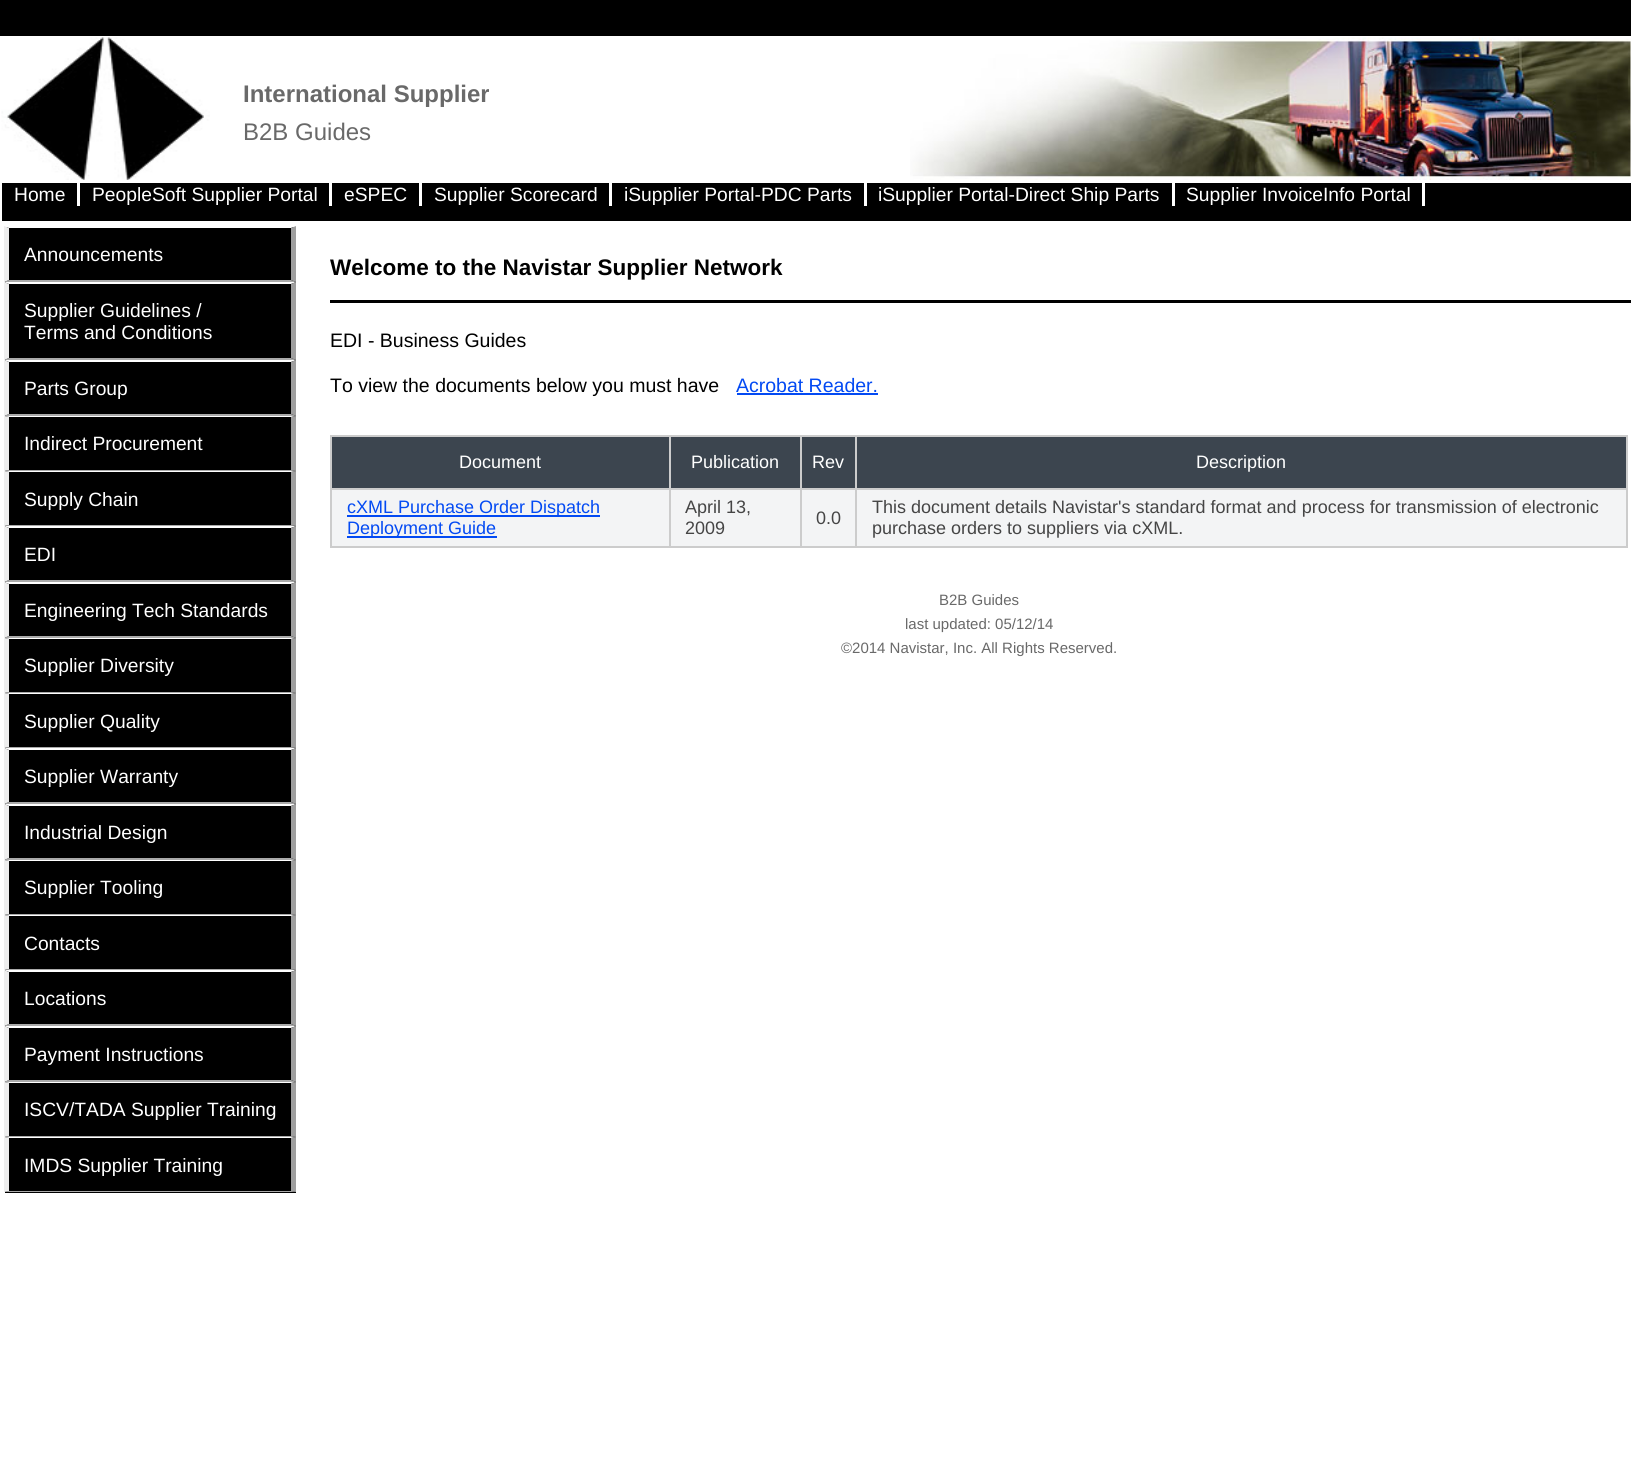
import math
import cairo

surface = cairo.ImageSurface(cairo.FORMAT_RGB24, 1631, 1474)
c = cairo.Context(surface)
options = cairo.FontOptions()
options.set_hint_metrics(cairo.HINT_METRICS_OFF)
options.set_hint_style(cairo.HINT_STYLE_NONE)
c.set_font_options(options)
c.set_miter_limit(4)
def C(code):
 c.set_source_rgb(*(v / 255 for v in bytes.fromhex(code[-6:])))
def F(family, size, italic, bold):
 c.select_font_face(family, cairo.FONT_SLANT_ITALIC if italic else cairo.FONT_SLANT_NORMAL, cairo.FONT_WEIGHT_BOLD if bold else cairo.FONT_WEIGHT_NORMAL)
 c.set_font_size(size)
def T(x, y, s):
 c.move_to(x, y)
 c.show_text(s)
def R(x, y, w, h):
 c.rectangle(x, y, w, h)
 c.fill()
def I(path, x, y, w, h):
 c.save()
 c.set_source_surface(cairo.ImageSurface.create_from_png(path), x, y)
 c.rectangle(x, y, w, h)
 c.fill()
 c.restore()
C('ffffff')
c.paint()
C('000000')
R(0,0,1631,36)
I('1.png',1,37,209,143)
F('Liberation Sans',24,0,1)
C('696969')
T(243,102,'International Supplier')
F('Liberation Sans',24,0,0)
T(243,140,'B2B Guides')
I('2.png',910,37,721,143)
C('000000')
R(2,183,1629,38)
C('ffffff')
R(77,183,3,23)
F('Liberation Sans',19.25,0,0)
T(14,201,'Home')
R(329,183,3,23)
T(92,201,'PeopleSoft Supplier Portal')
R(419,183,3,23)
T(344,201,'eSPEC')
R(609,183,3,23)
T(434,201,'Supplier Scorecard')
R(864,183,3,23)
T(624,201,'iSupplier Portal-PDC Parts')
R(1172,183,3,23)
T(878,201,'iSupplier Portal-Direct Ship Parts')
R(1422,183,3,23)
T(1186,201,'Supplier InvoiceInfo Portal')
C('000000')
R(5,227,291,966)
C('ffffff')
c.new_path()
c.move_to(4,226)
c.line_to(296,226)
c.line_to(291,228)
c.line_to(9,228)
c.close_path()
c.fill()
C('9f9f9f')
c.new_path()
c.move_to(296,226)
c.line_to(296,282)
c.line_to(291,280)
c.line_to(291,228)
c.close_path()
c.fill()
C('aaaaaa')
c.new_path()
c.move_to(296,282)
c.line_to(4,282)
c.line_to(9,280)
c.line_to(291,280)
c.close_path()
c.fill()
C('eeeeee')
c.new_path()
c.move_to(4,282)
c.line_to(4,226)
c.line_to(9,228)
c.line_to(9,280)
c.close_path()
c.fill()
C('ffffff')
T(24,261,'Announcements')
c.new_path()
c.move_to(4,282)
c.line_to(296,282)
c.line_to(291,284)
c.line_to(9,284)
c.close_path()
c.fill()
C('9f9f9f')
c.new_path()
c.move_to(296,282)
c.line_to(296,360)
c.line_to(291,358)
c.line_to(291,284)
c.close_path()
c.fill()
C('aaaaaa')
c.new_path()
c.move_to(296,360)
c.line_to(4,360)
c.line_to(9,358)
c.line_to(291,358)
c.close_path()
c.fill()
C('eeeeee')
c.new_path()
c.move_to(4,360)
c.line_to(4,282)
c.line_to(9,284)
c.line_to(9,358)
c.close_path()
c.fill()
C('ffffff')
T(24,317,'Supplier Guidelines /')
T(24,339,'Terms and Conditions')
c.new_path()
c.move_to(4,360)
c.line_to(296,360)
c.line_to(291,362)
c.line_to(9,362)
c.close_path()
c.fill()
C('9f9f9f')
c.new_path()
c.move_to(296,360)
c.line_to(296,416)
c.line_to(291,414)
c.line_to(291,362)
c.close_path()
c.fill()
C('aaaaaa')
c.new_path()
c.move_to(296,416)
c.line_to(4,416)
c.line_to(9,414)
c.line_to(291,414)
c.close_path()
c.fill()
C('eeeeee')
c.new_path()
c.move_to(4,416)
c.line_to(4,360)
c.line_to(9,362)
c.line_to(9,414)
c.close_path()
c.fill()
C('ffffff')
T(24,395,'Parts Group')
c.new_path()
c.move_to(4,416)
c.line_to(296,416)
c.line_to(291,417)
c.line_to(9,417)
c.close_path()
c.fill()
C('9f9f9f')
c.new_path()
c.move_to(296,416)
c.line_to(296,471)
c.line_to(291,470)
c.line_to(291,417)
c.close_path()
c.fill()
C('aaaaaa')
c.new_path()
c.move_to(296,471)
c.line_to(4,471)
c.line_to(9,470)
c.line_to(291,470)
c.close_path()
c.fill()
C('eeeeee')
c.new_path()
c.move_to(4,471)
c.line_to(4,416)
c.line_to(9,417)
c.line_to(9,470)
c.close_path()
c.fill()
C('ffffff')
T(24,450,'Indirect Procurement')
c.new_path()
c.move_to(4,471)
c.line_to(296,471)
c.line_to(291,472)
c.line_to(9,472)
c.close_path()
c.fill()
C('9f9f9f')
c.new_path()
c.move_to(296,471)
c.line_to(296,526)
c.line_to(291,525)
c.line_to(291,472)
c.close_path()
c.fill()
C('aaaaaa')
c.new_path()
c.move_to(296,526)
c.line_to(4,526)
c.line_to(9,525)
c.line_to(291,525)
c.close_path()
c.fill()
C('eeeeee')
c.new_path()
c.move_to(4,526)
c.line_to(4,471)
c.line_to(9,472)
c.line_to(9,525)
c.close_path()
c.fill()
C('ffffff')
T(24,506,'Supply Chain')
c.new_path()
c.move_to(4,526)
c.line_to(296,526)
c.line_to(291,528)
c.line_to(9,528)
c.close_path()
c.fill()
C('9f9f9f')
c.new_path()
c.move_to(296,526)
c.line_to(296,582)
c.line_to(291,580)
c.line_to(291,528)
c.close_path()
c.fill()
C('aaaaaa')
c.new_path()
c.move_to(296,582)
c.line_to(4,582)
c.line_to(9,580)
c.line_to(291,580)
c.close_path()
c.fill()
C('eeeeee')
c.new_path()
c.move_to(4,582)
c.line_to(4,526)
c.line_to(9,528)
c.line_to(9,580)
c.close_path()
c.fill()
C('ffffff')
T(24,561,'EDI')
c.new_path()
c.move_to(4,582)
c.line_to(296,582)
c.line_to(291,584)
c.line_to(9,584)
c.close_path()
c.fill()
C('9f9f9f')
c.new_path()
c.move_to(296,582)
c.line_to(296,638)
c.line_to(291,636)
c.line_to(291,584)
c.close_path()
c.fill()
C('aaaaaa')
c.new_path()
c.move_to(296,638)
c.line_to(4,638)
c.line_to(9,636)
c.line_to(291,636)
c.close_path()
c.fill()
C('eeeeee')
c.new_path()
c.move_to(4,638)
c.line_to(4,582)
c.line_to(9,584)
c.line_to(9,636)
c.close_path()
c.fill()
C('ffffff')
T(24,617,'Engineering Tech Standards')
c.new_path()
c.move_to(4,638)
c.line_to(296,638)
c.line_to(291,639)
c.line_to(9,639)
c.close_path()
c.fill()
C('9f9f9f')
c.new_path()
c.move_to(296,638)
c.line_to(296,693)
c.line_to(291,692)
c.line_to(291,639)
c.close_path()
c.fill()
C('aaaaaa')
c.new_path()
c.move_to(296,693)
c.line_to(4,693)
c.line_to(9,692)
c.line_to(291,692)
c.close_path()
c.fill()
C('eeeeee')
c.new_path()
c.move_to(4,693)
c.line_to(4,638)
c.line_to(9,639)
c.line_to(9,692)
c.close_path()
c.fill()
C('ffffff')
T(24,672,'Supplier Diversity')
c.new_path()
c.move_to(4,693)
c.line_to(296,693)
c.line_to(291,694)
c.line_to(9,694)
c.close_path()
c.fill()
C('9f9f9f')
c.new_path()
c.move_to(296,693)
c.line_to(296,748)
c.line_to(291,747)
c.line_to(291,694)
c.close_path()
c.fill()
C('aaaaaa')
c.new_path()
c.move_to(296,748)
c.line_to(4,748)
c.line_to(9,747)
c.line_to(291,747)
c.close_path()
c.fill()
C('eeeeee')
c.new_path()
c.move_to(4,748)
c.line_to(4,693)
c.line_to(9,694)
c.line_to(9,747)
c.close_path()
c.fill()
C('ffffff')
T(24,728,'Supplier Quality')
c.new_path()
c.move_to(4,748)
c.line_to(296,748)
c.line_to(291,750)
c.line_to(9,750)
c.close_path()
c.fill()
C('9f9f9f')
c.new_path()
c.move_to(296,748)
c.line_to(296,804)
c.line_to(291,802)
c.line_to(291,750)
c.close_path()
c.fill()
C('aaaaaa')
c.new_path()
c.move_to(296,804)
c.line_to(4,804)
c.line_to(9,802)
c.line_to(291,802)
c.close_path()
c.fill()
C('eeeeee')
c.new_path()
c.move_to(4,804)
c.line_to(4,748)
c.line_to(9,750)
c.line_to(9,802)
c.close_path()
c.fill()
C('ffffff')
T(24,783,'Supplier Warranty')
c.new_path()
c.move_to(4,804)
c.line_to(296,804)
c.line_to(291,806)
c.line_to(9,806)
c.close_path()
c.fill()
C('9f9f9f')
c.new_path()
c.move_to(296,804)
c.line_to(296,860)
c.line_to(291,858)
c.line_to(291,806)
c.close_path()
c.fill()
C('aaaaaa')
c.new_path()
c.move_to(296,860)
c.line_to(4,860)
c.line_to(9,858)
c.line_to(291,858)
c.close_path()
c.fill()
C('eeeeee')
c.new_path()
c.move_to(4,860)
c.line_to(4,804)
c.line_to(9,806)
c.line_to(9,858)
c.close_path()
c.fill()
C('ffffff')
T(24,839,'Industrial Design')
c.new_path()
c.move_to(4,860)
c.line_to(296,860)
c.line_to(291,861)
c.line_to(9,861)
c.close_path()
c.fill()
C('9f9f9f')
c.new_path()
c.move_to(296,860)
c.line_to(296,915)
c.line_to(291,914)
c.line_to(291,861)
c.close_path()
c.fill()
C('aaaaaa')
c.new_path()
c.move_to(296,915)
c.line_to(4,915)
c.line_to(9,914)
c.line_to(291,914)
c.close_path()
c.fill()
C('eeeeee')
c.new_path()
c.move_to(4,915)
c.line_to(4,860)
c.line_to(9,861)
c.line_to(9,914)
c.close_path()
c.fill()
C('ffffff')
T(24,894,'Supplier Tooling')
c.new_path()
c.move_to(4,915)
c.line_to(296,915)
c.line_to(291,916)
c.line_to(9,916)
c.close_path()
c.fill()
C('9f9f9f')
c.new_path()
c.move_to(296,915)
c.line_to(296,970)
c.line_to(291,969)
c.line_to(291,916)
c.close_path()
c.fill()
C('aaaaaa')
c.new_path()
c.move_to(296,970)
c.line_to(4,970)
c.line_to(9,969)
c.line_to(291,969)
c.close_path()
c.fill()
C('eeeeee')
c.new_path()
c.move_to(4,970)
c.line_to(4,915)
c.line_to(9,916)
c.line_to(9,969)
c.close_path()
c.fill()
C('ffffff')
T(24,950,'Contacts')
c.new_path()
c.move_to(4,970)
c.line_to(296,970)
c.line_to(291,972)
c.line_to(9,972)
c.close_path()
c.fill()
C('9f9f9f')
c.new_path()
c.move_to(296,970)
c.line_to(296,1026)
c.line_to(291,1024)
c.line_to(291,972)
c.close_path()
c.fill()
C('aaaaaa')
c.new_path()
c.move_to(296,1026)
c.line_to(4,1026)
c.line_to(9,1024)
c.line_to(291,1024)
c.close_path()
c.fill()
C('eeeeee')
c.new_path()
c.move_to(4,1026)
c.line_to(4,970)
c.line_to(9,972)
c.line_to(9,1024)
c.close_path()
c.fill()
C('ffffff')
T(24,1005,'Locations')
c.new_path()
c.move_to(4,1026)
c.line_to(296,1026)
c.line_to(291,1028)
c.line_to(9,1028)
c.close_path()
c.fill()
C('9f9f9f')
c.new_path()
c.move_to(296,1026)
c.line_to(296,1082)
c.line_to(291,1080)
c.line_to(291,1028)
c.close_path()
c.fill()
C('aaaaaa')
c.new_path()
c.move_to(296,1082)
c.line_to(4,1082)
c.line_to(9,1080)
c.line_to(291,1080)
c.close_path()
c.fill()
C('eeeeee')
c.new_path()
c.move_to(4,1082)
c.line_to(4,1026)
c.line_to(9,1028)
c.line_to(9,1080)
c.close_path()
c.fill()
C('ffffff')
T(24,1061,'Payment Instructions')
c.new_path()
c.move_to(4,1082)
c.line_to(296,1082)
c.line_to(291,1083)
c.line_to(9,1083)
c.close_path()
c.fill()
C('9f9f9f')
c.new_path()
c.move_to(296,1082)
c.line_to(296,1137)
c.line_to(291,1136)
c.line_to(291,1083)
c.close_path()
c.fill()
C('aaaaaa')
c.new_path()
c.move_to(296,1137)
c.line_to(4,1137)
c.line_to(9,1136)
c.line_to(291,1136)
c.close_path()
c.fill()
C('eeeeee')
c.new_path()
c.move_to(4,1137)
c.line_to(4,1082)
c.line_to(9,1083)
c.line_to(9,1136)
c.close_path()
c.fill()
C('ffffff')
T(24,1116,'ISCV/TADA Supplier Training')
c.new_path()
c.move_to(4,1137)
c.line_to(296,1137)
c.line_to(291,1138)
c.line_to(9,1138)
c.close_path()
c.fill()
C('9f9f9f')
c.new_path()
c.move_to(296,1137)
c.line_to(296,1192)
c.line_to(291,1191)
c.line_to(291,1138)
c.close_path()
c.fill()
C('aaaaaa')
c.new_path()
c.move_to(296,1192)
c.line_to(4,1192)
c.line_to(9,1191)
c.line_to(291,1191)
c.close_path()
c.fill()
C('eeeeee')
c.new_path()
c.move_to(4,1192)
c.line_to(4,1137)
c.line_to(9,1138)
c.line_to(9,1191)
c.close_path()
c.fill()
C('ffffff')
T(24,1172,'IMDS Supplier Training')
F('Liberation Sans',22.5,0,1)
C('000000')
T(330,275,'Welcome to the Navistar Supplier Network')
R(330,300,1301,3)
F('Liberation Sans',19.5,0,0)
T(330,347,'EDI - Business Guides')
T(330,392,'To view the documents below you must have')
C('034af3')
T(736,392,'Acrobat Reader.')
R(737,393,141,2)
C('3c454f')
R(332,437,337,51)
C('cccccc')
R(855,435,773,2)
R(855,488,773,2)
C('f3f4f5')
R(332,490,1294,56)
C('cccccc')
R(1626,488,2,60)
R(855,546,773,2)
R(855,488,2,60)
R(800,488,57,2)
R(855,435,2,54)
R(800,435,57,2)
R(800,546,57,2)
R(800,488,2,60)
R(669,488,132,2)
R(800,435,2,54)
R(669,435,132,2)
R(669,546,132,2)
R(669,488,2,60)
R(330,488,341,2)
R(669,435,2,54)
R(330,435,341,2)
R(330,546,341,2)
R(330,488,2,60)
R(330,435,2,54)
F('Liberation Sans',18,0,0)
C('ffffff')
T(459,468,'Document')
C('3c454f')
R(671,437,129,51)
C('ffffff')
T(691,468,'Publication')
C('3c454f')
R(802,437,53,51)
C('ffffff')
T(812,468,'Rev')
C('3c454f')
R(857,437,769,51)
C('cccccc')
R(1626,435,2,54)
C('ffffff')
T(1196,468,'Description')
C('034af3')
R(347,515,253,2)
T(347,513,'cXML Purchase Order Dispatch')
R(347,536,150,2)
T(347,534,'Deployment Guide')
C('454545')
T(685,513,'April 13,')
T(685,534,'2009')
T(816,524,'0.0')
T(872,513,'This document details Navistar\'s standard format and process for transmission of electronic')
T(872,534,'purchase orders to suppliers via cXML.')
F('Liberation Sans',15,0,0)
C('696969')
T(939,605,'B2B Guides')
T(905,629,'last updated: 05/12/14')
T(841,653,'©2014 Navistar, Inc. All Rights Reserved.')
surface.write_to_png('o.png')
